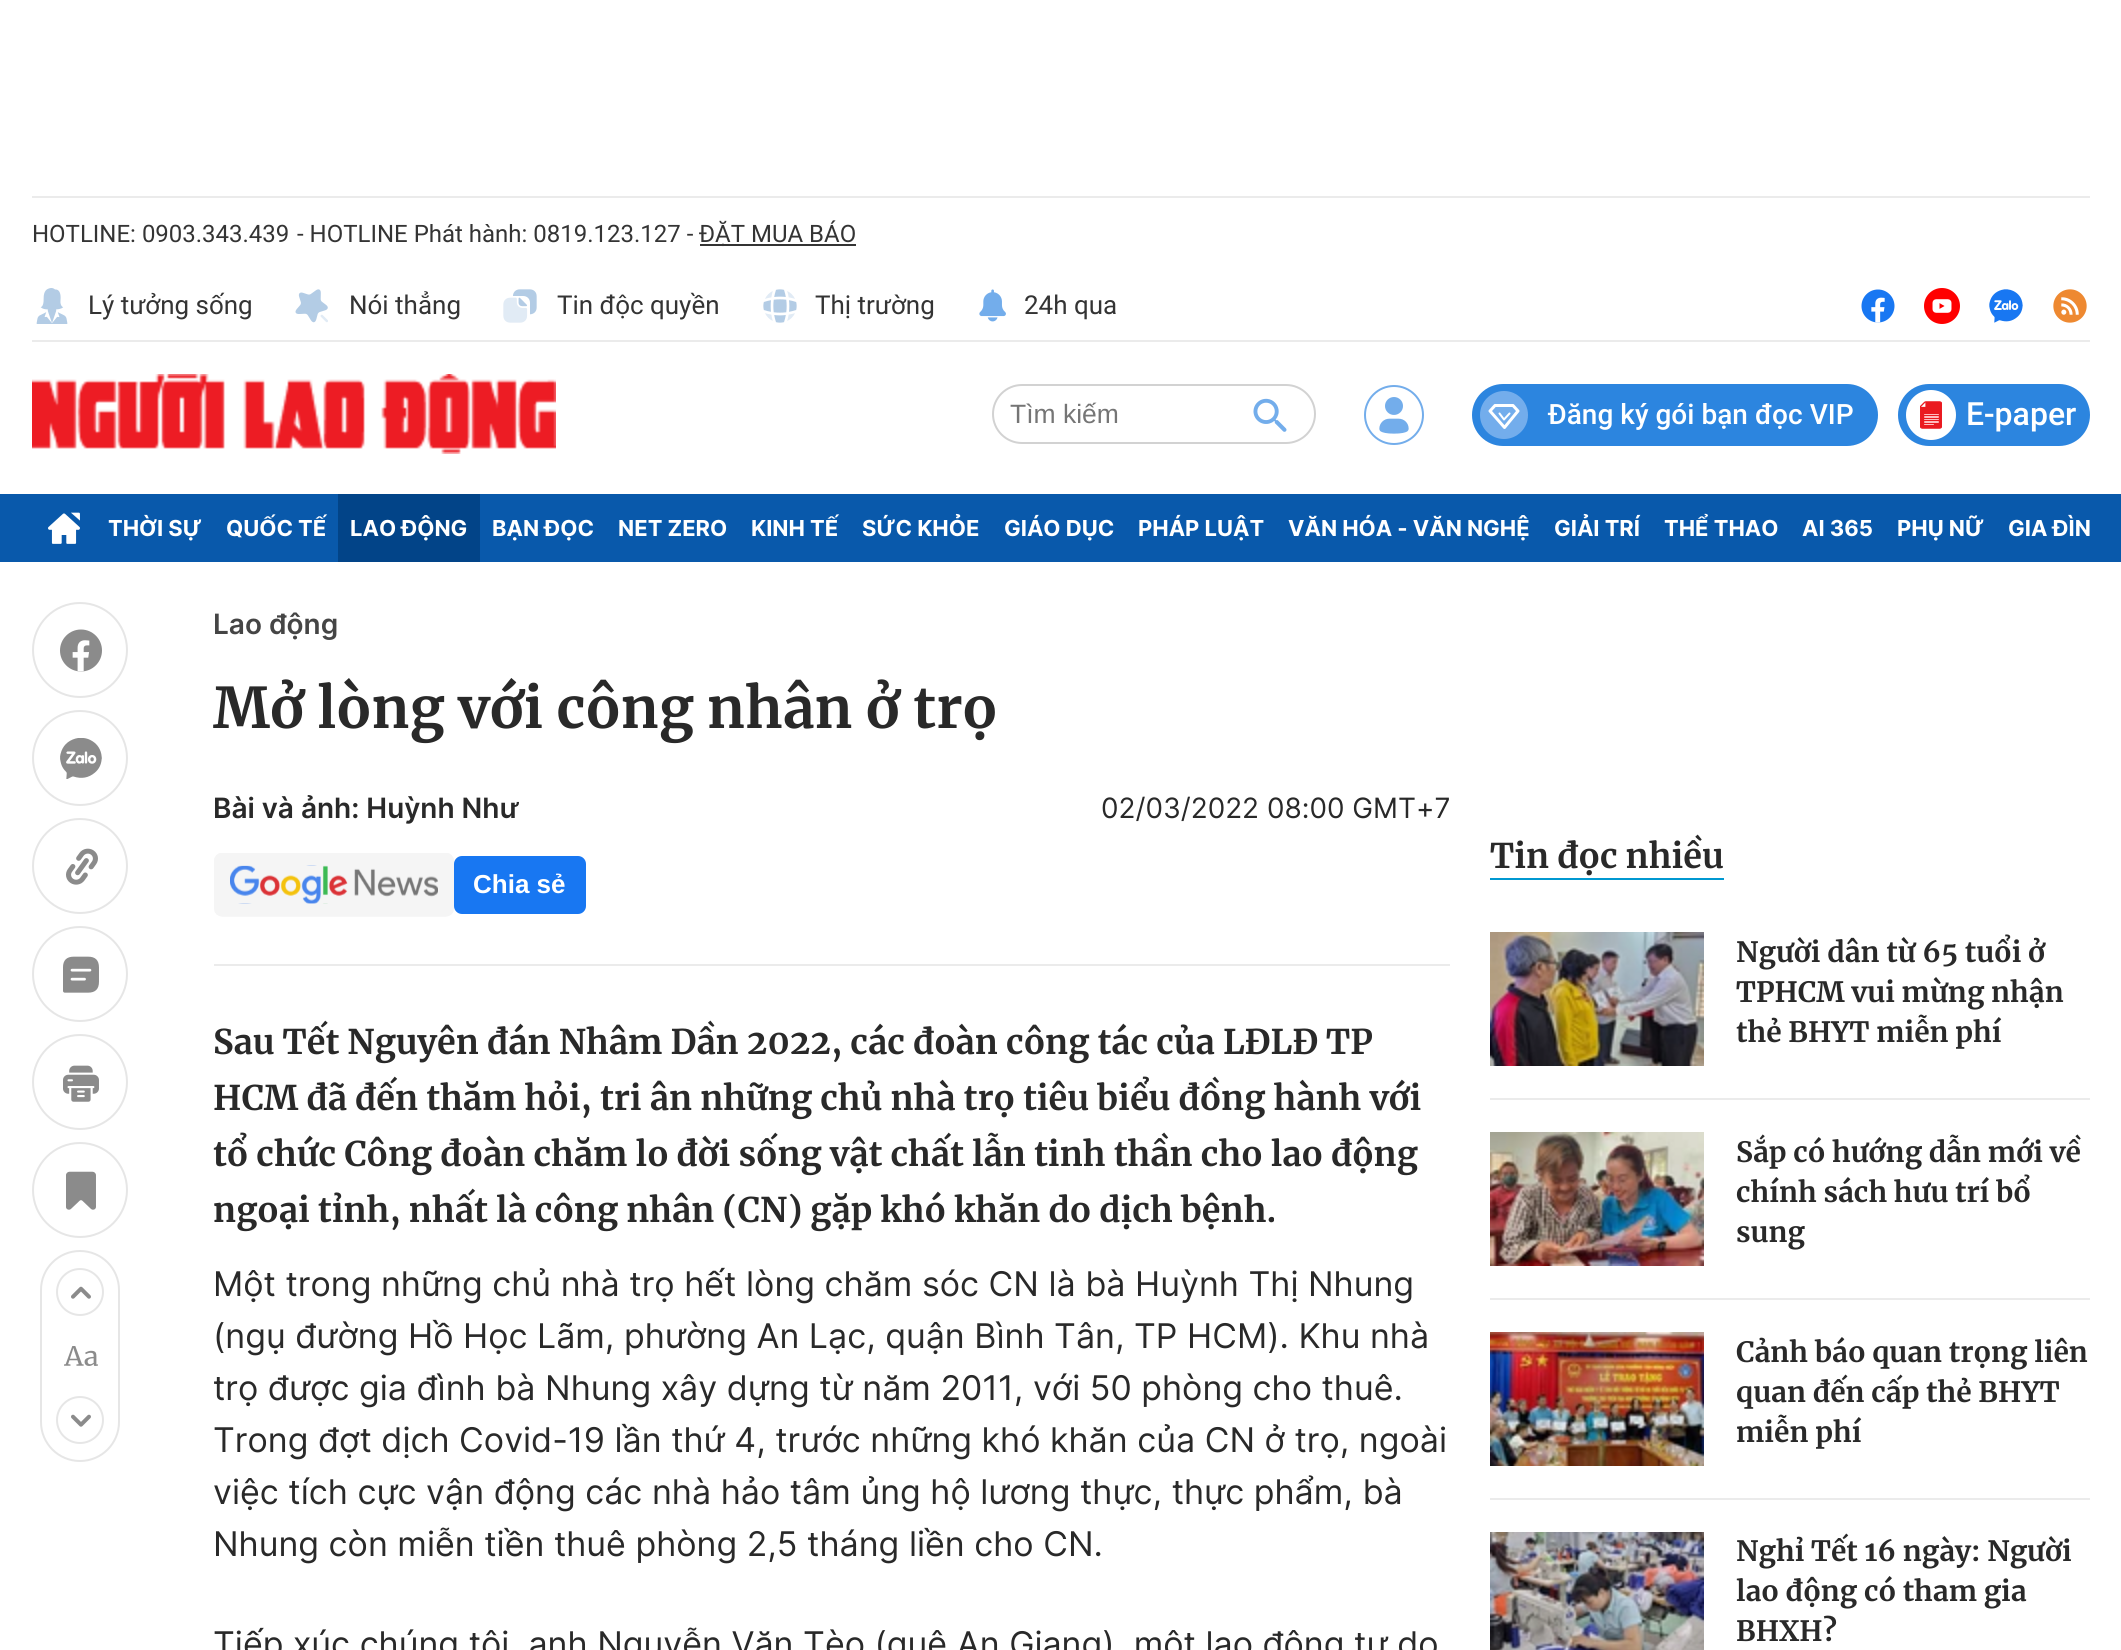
import math
import cairo

surface = cairo.ImageSurface(cairo.FORMAT_RGB24, 2121, 1650)
c = cairo.Context(surface)
options = cairo.FontOptions()
options.set_hint_metrics(cairo.HINT_METRICS_OFF)
options.set_hint_style(cairo.HINT_STYLE_NONE)
c.set_font_options(options)
c.set_miter_limit(4)
def C(code):
 c.set_source_rgb(*(v / 255 for v in bytes.fromhex(code[-6:])))
def F(family, size, italic, bold):
 c.select_font_face(family, cairo.FONT_SLANT_ITALIC if italic else cairo.FONT_SLANT_NORMAL, cairo.FONT_WEIGHT_BOLD if bold else cairo.FONT_WEIGHT_NORMAL)
 c.set_font_size(size)
def T(x, y, s):
 c.move_to(x, y)
 c.show_text(s)
def R(x, y, w, h):
 c.rectangle(x, y, w, h)
 c.fill()
def Q(x, y, w, h, r):
 c.new_sub_path()
 for i, (u, v) in enumerate([(x + w - r, y + h - r), (x + r, y + h - r), (x + r, y + r), (x + w - r, y + r)]):
  c.arc(u, v, r, i * math.pi / 2, (i + 1) * math.pi / 2)
 c.close_path()
def I(path, x, y, w, h):
 c.save()
 c.set_source_surface(cairo.ImageSurface.create_from_png(path), x, y)
 c.rectangle(x, y, w, h)
 c.fill()
 c.restore()
C('ffffff')
c.paint()
C('ebebeb')
R(32,196,2058,2)
R(32,340,2058,2)
F('Roboto',24,0,0)
C('343434')
T(32,242,'HOTLINE: 0903.343.439')
T(297,242,'- HOTLINE Phát hành: 0819.123.127 -')
R(700,244,156,2)
T(699,242,'ĐẶT MUA BÁO')
I('1.png',36,288,32,36)
F('Roboto',26,0,0)
T(88,314,'Lý tưởng sống')
I('2.png',295,289,33,34)
T(349,314,'Nói thẳng')
I('3.png',503,289,34,34)
T(557,314,'Tin độc quyền')
I('4.png',763,289,34,34)
T(815,314,'Thị trường')
I('5.png',979,289,27,33)
T(1024,314,'24h qua')
I('6.png',1861,289,34,34)
I('7.png',1924,288,36,36)
I('8.png',1989,289,34,34)
I('9.png',2053,289,34,34)
I('10.png',32,374,524,80)
Q(993,385,322,58,29)
C('d2d2d2')
c.stroke()
F('Liberation Sans',26.5,0,0)
C('757575')
T(1010,423,'Tìm kiếm')
I('11.png',1253,398,34,34)
I('12.png',1364,385,60,60)
C('2c85df')
Q(1472,384,406,62,31)
c.fill()
C('73adec')
c.arc(1504,415,24,0,2 * math.pi)
c.fill()
c.new_path()
c.move_to(1504.5,427.5)
c.line_to(1490,411)
c.line_to(1495,405.5)
c.line_to(1513,405.5)
c.line_to(1518,411)
c.close_path()
C('ffffff')
c.set_line_width(3)
c.set_line_cap(cairo.LINE_CAP_ROUND)
c.set_line_join(cairo.LINE_JOIN_ROUND)
c.stroke()
c.new_path()
c.move_to(1499.5,413.5)
c.line_to(1504,419.5)
c.move_to(1509.5,413.5)
c.line_to(1504,419.5)
c.set_line_width(2)
c.stroke()
F('Roboto Medium',28,0,0)
T(1548,424,'Đăng ký gói bạn đọc VIP')
C('2c85df')
Q(1898,384,192,62,31)
c.fill()
I('13.png',1906,390,50,50)
F('Roboto Medium',32,0,0)
C('ffffff')
T(1966,425,'E-paper')
C('0959ab')
R(0,494,2121,68)
I('14.png',48,512,32,32)
F('Inter',22,0,1)
C('ffffff')
T(108,536,'THỜI SỰ')
T(226,536,'QUỐC TẾ')
C('024488')
R(338,494,142,68)
C('ffffff')
T(350,536,'LAO ĐỘNG')
T(492,536,'BẠN ĐỌC')
T(618,536,'NET ZERO')
T(751,536,'KINH TẾ')
T(862,536,'SỨC KHỎE')
T(1004,536,'GIÁO DỤC')
T(1138,536,'PHÁP LUẬT')
T(1288,536,'VĂN HÓA - VĂN NGHỆ')
T(1554,536,'GIẢI TRÍ')
T(1664,536,'THỂ THAO')
T(1802,536,'AI 365')
T(1897,536,'PHỤ NỮ')
T(2008,536,'GIA ĐÌN')
c.new_path()
c.arc(80,650,47,0,2 * math.pi)
C('e6e6e6')
c.set_line_cap(cairo.LINE_CAP_BUTT)
c.set_line_join(cairo.LINE_JOIN_MITER)
c.stroke()
I('15.png',60,629,42,43)
c.arc(80,758,47,0,2 * math.pi)
c.stroke()
I('16.png',60,738,42,41)
c.arc(80,866,47,0,2 * math.pi)
c.stroke()
I('17.png',66,848,32,37)
c.arc(80,974,47,0,2 * math.pi)
c.stroke()
I('18.png',63,956,36,37)
c.arc(80,1082,47,0,2 * math.pi)
c.stroke()
I('19.png',63,1065,36,37)
c.arc(80,1190,47,0,2 * math.pi)
c.stroke()
I('20.png',66,1171,30,39)
Q(41,1251,78,210,39)
c.stroke()
c.arc(80,1292,23,0,2 * math.pi)
c.stroke()
I('21.png',71,1286,20,13)
I('22.png',64,1346,34,20)
c.arc(80,1420,23,0,2 * math.pi)
c.stroke()
I('23.png',71,1414,20,13)
F('Inter SemiBold',28,0,0)
C('454545')
T(213,634,'Lao động')
F('Merriweather',56,0,1)
C('292929')
T(213,728,'Mở lòng với công nhân ở trọ')
F('Inter SemiBold',28,0,0)
T(213,818,'Bài và ảnh: Huỳnh Như')
F('Inter',28,0,0)
T(1101,818,'02/03/2022 08:00 GMT+7')
C('ebebeb')
R(214,964,1236,2)
I('24.png',214,853,240,64)
C('1877f2')
Q(454,856,132,58,8)
c.fill()
F('Liberation Sans',26,0,1)
C('ffffff')
T(473,893,'Chia sẻ')
F('Merriweather',34,0,1)
C('292929')
T(213,1054,'Sau Tết Nguyên đán Nhâm Dần 2022, các đoàn công tác của LĐLĐ TP')
T(213,1110,'HCM đã đến thăm hỏi, tri ân những chủ nhà trọ tiêu biểu đồng hành với')
T(213,1166,'tổ chức Công đoàn chăm lo đời sống vật chất lẫn tinh thần cho lao động')
T(213,1222,'ngoại tỉnh, nhất là công nhân (CN) gặp khó khăn do dịch bệnh.')
F('Inter',34,0,0)
T(213,1296,'Một trong những chủ nhà trọ hết lòng chăm sóc CN là bà Huỳnh Thị Nhung')
T(213,1348,'(ngụ đường Hồ Học Lãm, phường An Lạc, quận Bình Tân, TP HCM). Khu nhà')
T(213,1400,'trọ được gia đình bà Nhung xây dựng từ năm 2011, với 50 phòng cho thuê.')
T(213,1452,'Trong đợt dịch Covid-19 lần thứ 4, trước những khó khăn của CN ở trọ, ngoài')
T(213,1504,'việc tích cực vận động các nhà hảo tâm ủng hộ lương thực, thực phẩm, bà')
T(213,1556,'Nhung còn miễn tiền thuê phòng 2,5 tháng liền cho CN.')
T(213,1656,'Tiếp xúc chúng tôi, anh Nguyễn Văn Tèo (quê An Giang), một lao động tự do')
F('Merriweather',34,0,1)
T(1490,868,'Tin đọc nhiều')
C('0098d1')
R(1490,878,234,2)
C('ebebeb')
R(1490,1098,600,2)
I('25.png',1490,932,214,134)
F('Merriweather',28,0,1)
C('292929')
T(1736,962,'Người dân từ 65 tuổi ở')
T(1736,1002,'TPHCM vui mừng nhận')
T(1736,1042,'thẻ BHYT miễn phí')
C('ebebeb')
R(1490,1298,600,2)
I('26.png',1490,1132,214,134)
C('292929')
T(1736,1162,'Sắp có hướng dẫn mới về')
T(1736,1202,'chính sách hưu trí bổ')
T(1736,1242,'sung')
C('ebebeb')
R(1490,1498,600,2)
I('27.png',1490,1332,214,134)
C('292929')
T(1736,1362,'Cảnh báo quan trọng liên')
T(1736,1402,'quan đến cấp thẻ BHYT')
T(1736,1442,'miễn phí')
I('28.png',1490,1532,214,118)
T(1736,1561,'Nghỉ Tết 16 ngày: Người')
T(1736,1601,'lao động có tham gia')
T(1736,1641,'BHXH?')
surface.write_to_png('o.png')
